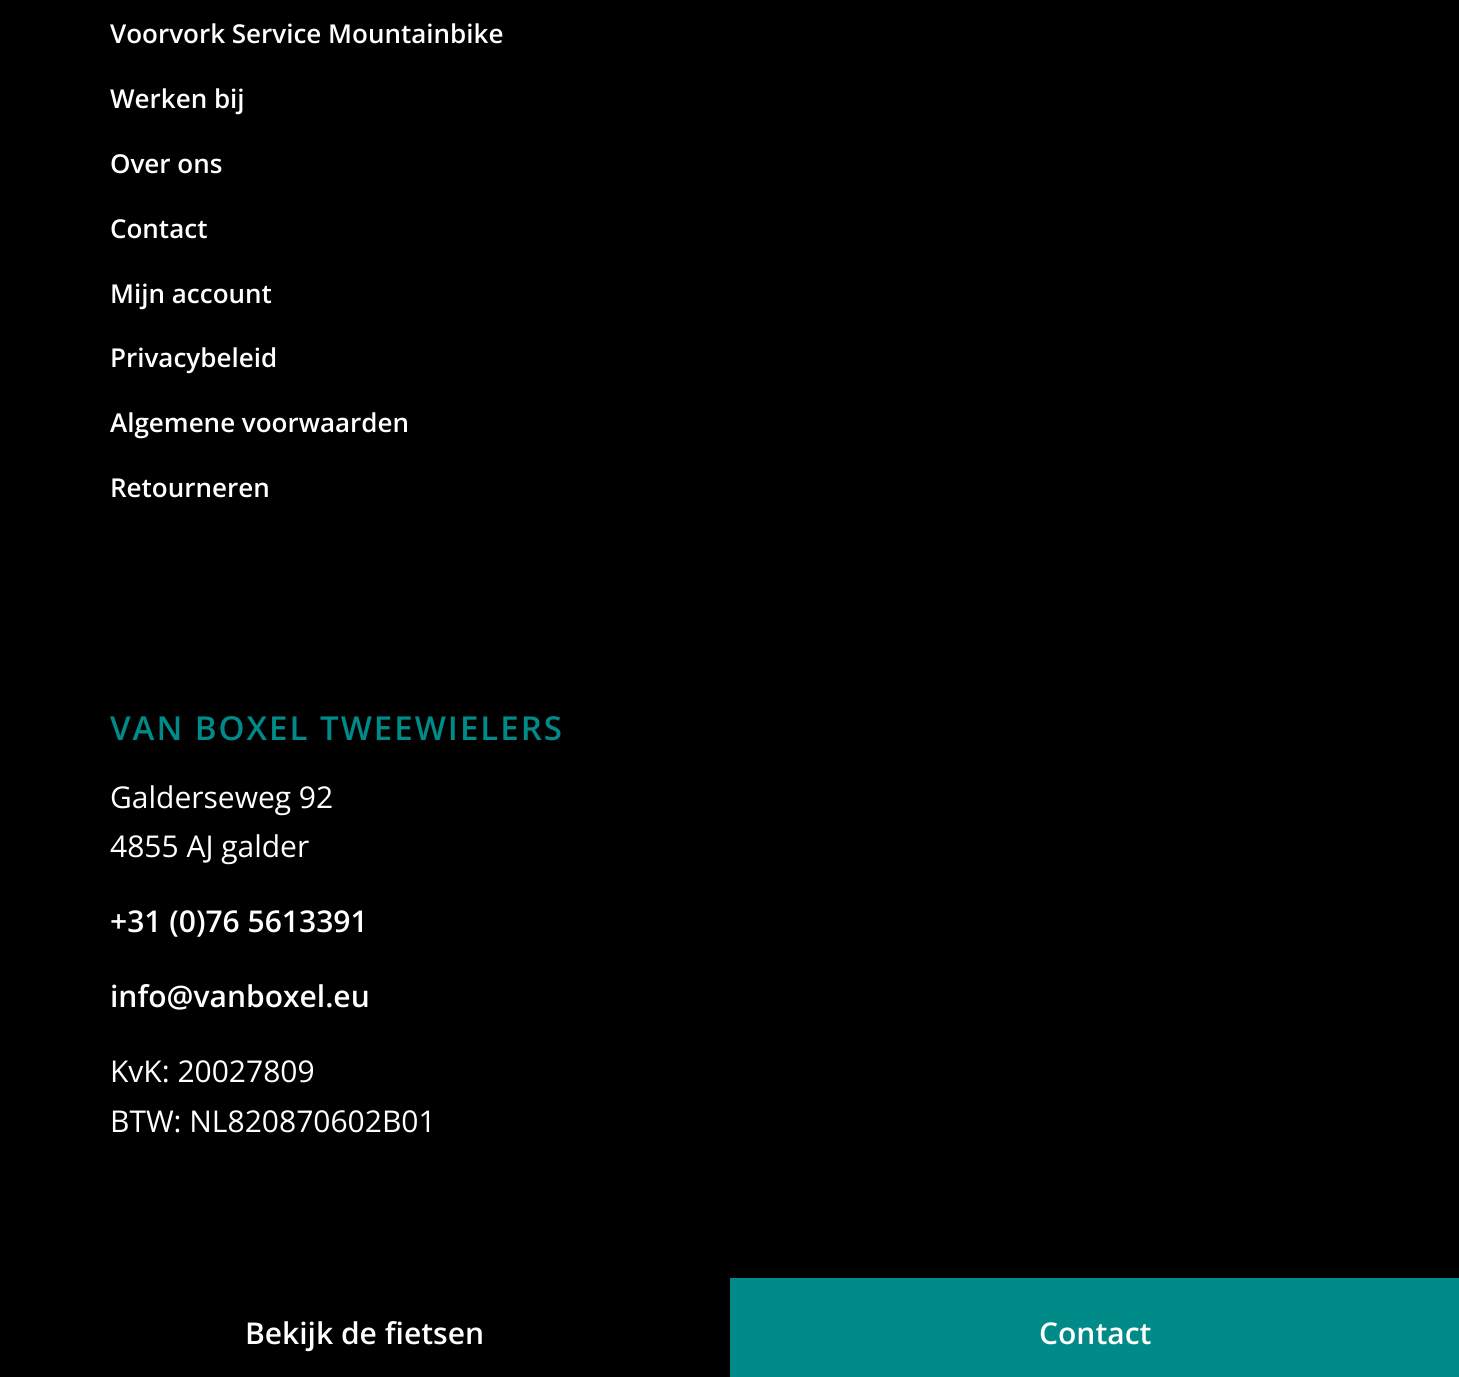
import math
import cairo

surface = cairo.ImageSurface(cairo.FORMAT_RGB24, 1459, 1377)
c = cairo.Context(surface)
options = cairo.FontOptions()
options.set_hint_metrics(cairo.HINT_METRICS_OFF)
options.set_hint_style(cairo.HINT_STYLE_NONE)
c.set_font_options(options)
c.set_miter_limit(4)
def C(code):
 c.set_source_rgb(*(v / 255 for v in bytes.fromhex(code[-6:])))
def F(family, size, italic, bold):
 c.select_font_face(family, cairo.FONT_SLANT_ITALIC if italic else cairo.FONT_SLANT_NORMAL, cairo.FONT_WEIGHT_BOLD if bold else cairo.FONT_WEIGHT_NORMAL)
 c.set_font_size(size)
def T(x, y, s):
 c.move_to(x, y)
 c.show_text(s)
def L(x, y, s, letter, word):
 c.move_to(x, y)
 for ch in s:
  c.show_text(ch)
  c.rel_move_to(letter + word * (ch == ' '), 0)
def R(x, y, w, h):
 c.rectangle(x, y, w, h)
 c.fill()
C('000000')
c.paint()
F('Open Sans SemiBold',26,0,0)
C('ffffff')
T(110,43,'Voorvork Service Mountainbike')
T(110,108,'Werken bij')
T(110,173,'Over ons')
T(110,238,'Contact')
T(110,303,'Mijn account')
T(110,367,'Privacybeleid')
T(110,432,'Algemene voorwaarden')
T(110,497,'Retourneren')
F('Open Sans SemiBold',33,0,0)
C('008a88')
L(110,740,'VAN BOXEL TWEEWIELERS',2,0)
F('Open Sans',30,0,0)
C('ffffff')
T(110,808,'Galderseweg 92')
T(110,857,'4855 AJ galder')
F('Open Sans SemiBold',30,0,0)
T(110,932,'+31 (0)76 5613391')
T(110,1007,'info@vanboxel.eu')
F('Open Sans',30,0,0)
T(110,1082,'KvK: 20027809')
T(110,1132,'BTW: NL820870602B01')
F('Open Sans SemiBold',30,0,0)
T(245,1344,'Bekijk de fietsen')
C('008a88')
R(730,1278,729,99)
C('ffffff')
T(1039,1344,'Contact')
surface.write_to_png('o.png')
